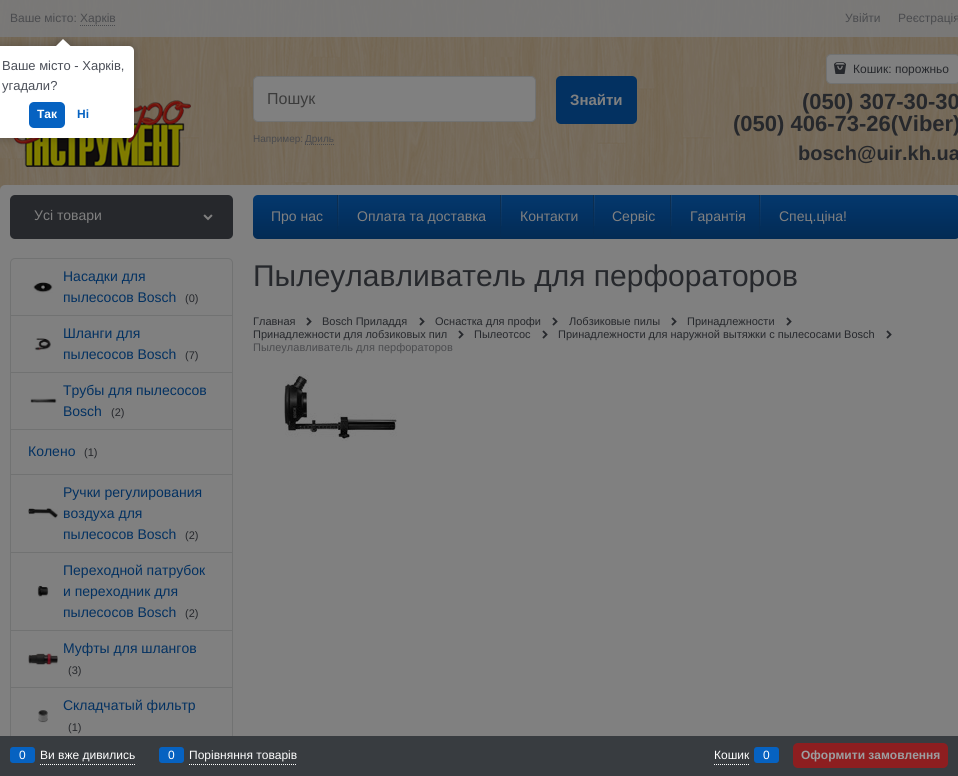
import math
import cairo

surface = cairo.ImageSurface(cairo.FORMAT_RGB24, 958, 776)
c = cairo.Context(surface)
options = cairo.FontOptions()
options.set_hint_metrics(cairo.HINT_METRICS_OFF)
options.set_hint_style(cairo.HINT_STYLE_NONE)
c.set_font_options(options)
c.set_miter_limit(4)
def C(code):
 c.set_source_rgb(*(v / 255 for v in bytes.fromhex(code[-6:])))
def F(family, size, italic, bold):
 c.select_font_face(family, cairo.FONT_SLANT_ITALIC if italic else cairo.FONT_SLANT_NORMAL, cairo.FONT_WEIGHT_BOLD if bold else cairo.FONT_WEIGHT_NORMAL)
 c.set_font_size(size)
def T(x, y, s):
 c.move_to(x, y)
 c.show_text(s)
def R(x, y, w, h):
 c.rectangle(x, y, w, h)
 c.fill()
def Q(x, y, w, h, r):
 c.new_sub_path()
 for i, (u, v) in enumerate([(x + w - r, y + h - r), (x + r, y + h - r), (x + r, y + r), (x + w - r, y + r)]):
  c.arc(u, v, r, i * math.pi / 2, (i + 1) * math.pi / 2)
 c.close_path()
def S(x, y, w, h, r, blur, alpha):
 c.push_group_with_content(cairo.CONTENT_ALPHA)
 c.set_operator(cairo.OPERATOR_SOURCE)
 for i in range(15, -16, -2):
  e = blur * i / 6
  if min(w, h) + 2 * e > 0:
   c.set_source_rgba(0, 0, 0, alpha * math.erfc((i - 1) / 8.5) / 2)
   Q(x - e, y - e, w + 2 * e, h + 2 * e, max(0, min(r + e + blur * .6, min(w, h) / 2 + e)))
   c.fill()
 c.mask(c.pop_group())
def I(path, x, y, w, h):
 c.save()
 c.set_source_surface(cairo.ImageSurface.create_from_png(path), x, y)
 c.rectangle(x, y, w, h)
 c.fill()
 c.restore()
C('ffffff')
c.paint()
I('1.png',0,0,958,190)
c.set_source_rgba(0.478,0.478,0.478,0.9)
R(0,0,958,37)
F('Liberation Sans',12,0,0)
C('4a4b4e')
T(10,22,'Ваше місто: Харків')
c.new_path()
c.move_to(80,25.5)
c.line_to(116,25.5)
c.set_line_width(1)
c.set_dash([1,1])
c.stroke()
T(845,22,'Увійти')
T(898,22,'Реєстрація')
I('2.png',13,100,178,67)
C('808080')
Q(253.5,76.5,282,45,4.5)
c.fill_preserve()
C('717272')
c.set_dash([])
c.stroke()
F('Liberation Sans',16,0,0)
C('3b3b3b')
T(267,104,'Пошук')
F('Liberation Sans',10,0,0)
C('4a4b4e')
T(253,142,'Например:')
c.new_path()
c.move_to(305,144.5)
c.line_to(334,144.5)
c.set_dash([1,1])
c.stroke()
T(305,142,'Дриль')
C('033161')
Q(556,76,81,48,5)
c.fill()
F('Liberation Sans',15,0,1)
C('808080')
T(570,105,'Знайти')
Q(826.5,54.5,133,29,4.5)
c.fill_preserve()
C('717272')
c.set_dash([])
c.stroke()
I('3.png',834,62,12,12)
F('Liberation Sans',12,0,0)
C('26282c')
T(853,73,'Кошик: порожньо')
F('Liberation Sans',22,0,1)
T(802,109,'(050) 307-30-30')
T(733,131,'(050) 406-73-26(Viber)')
F('Liberation Sans',20,0,1)
T(798,160,'bosch@uir.kh.ua')
C('808080')
Q(0,185,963,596,5)
c.fill()
C('26282c')
Q(10,195,223,44,5)
c.fill()
F('Liberation Sans',14,0,0)
C('808080')
T(34,220,'Усі товари')
I('4.png',203,214,10,7)
gradient = cairo.LinearGradient(607,195,607,239)
gradient.add_color_stop_rgba(0,0.016,0.22,0.427,1)
gradient.add_color_stop_rgba(.5,0.012,0.192,0.38,1)
gradient.add_color_stop_rgba(1,0.012,0.169,0.329,1)
c.set_source(gradient)
Q(253,195,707,44,5)
c.fill()
C('808080')
T(271,221,'Про нас')
gradient = cairo.LinearGradient(339,195,339,239)
gradient.add_color_stop_rgba(0,0.502,0.502,0.502,.14)
gradient.add_color_stop_rgba(.72,0.502,0.502,0.502,.02)
gradient.add_color_stop_rgba(1,0.502,0.502,0.502,0)
c.set_source(gradient)
R(338,195,1,31)
gradient = cairo.LinearGradient(338,195,338,239)
gradient.add_color_stop_rgba(0,0.114,0.114,0.114,.39)
gradient.add_color_stop_rgba(.17,0.114,0.114,0.114,.33)
gradient.add_color_stop_rgba(.61,0.114,0.114,0.114,.12)
gradient.add_color_stop_rgba(.96,0.114,0.114,0.114,.01)
gradient.add_color_stop_rgba(.98,0.502,0.502,0.502,.01)
gradient.add_color_stop_rgba(1,0.502,0.502,0.502,0)
c.set_source(gradient)
R(337,195,1,44)
C('808080')
T(357,221,'Оплата та доставка')
gradient = cairo.LinearGradient(502,195,502,239)
gradient.add_color_stop_rgba(0,0.502,0.502,0.502,.14)
gradient.add_color_stop_rgba(.72,0.502,0.502,0.502,.02)
gradient.add_color_stop_rgba(1,0.502,0.502,0.502,0)
c.set_source(gradient)
R(501,195,1,31)
gradient = cairo.LinearGradient(501,195,501,239)
gradient.add_color_stop_rgba(0,0.114,0.114,0.114,.39)
gradient.add_color_stop_rgba(.17,0.114,0.114,0.114,.33)
gradient.add_color_stop_rgba(.61,0.114,0.114,0.114,.12)
gradient.add_color_stop_rgba(.96,0.114,0.114,0.114,.01)
gradient.add_color_stop_rgba(.98,0.502,0.502,0.502,.01)
gradient.add_color_stop_rgba(1,0.502,0.502,0.502,0)
c.set_source(gradient)
R(500,195,1,44)
C('808080')
T(520,221,'Контакти')
gradient = cairo.LinearGradient(595,195,595,239)
gradient.add_color_stop_rgba(0,0.502,0.502,0.502,.14)
gradient.add_color_stop_rgba(.72,0.502,0.502,0.502,.02)
gradient.add_color_stop_rgba(1,0.502,0.502,0.502,0)
c.set_source(gradient)
R(594,195,1,31)
gradient = cairo.LinearGradient(594,195,594,239)
gradient.add_color_stop_rgba(0,0.114,0.114,0.114,.39)
gradient.add_color_stop_rgba(.17,0.114,0.114,0.114,.33)
gradient.add_color_stop_rgba(.61,0.114,0.114,0.114,.12)
gradient.add_color_stop_rgba(.96,0.114,0.114,0.114,.01)
gradient.add_color_stop_rgba(.98,0.502,0.502,0.502,.01)
gradient.add_color_stop_rgba(1,0.502,0.502,0.502,0)
c.set_source(gradient)
R(593,195,1,44)
C('808080')
T(612,221,'Сервіс')
gradient = cairo.LinearGradient(672,195,672,239)
gradient.add_color_stop_rgba(0,0.502,0.502,0.502,.14)
gradient.add_color_stop_rgba(.72,0.502,0.502,0.502,.02)
gradient.add_color_stop_rgba(1,0.502,0.502,0.502,0)
c.set_source(gradient)
R(671,195,1,31)
gradient = cairo.LinearGradient(671,195,671,239)
gradient.add_color_stop_rgba(0,0.114,0.114,0.114,.39)
gradient.add_color_stop_rgba(.17,0.114,0.114,0.114,.33)
gradient.add_color_stop_rgba(.61,0.114,0.114,0.114,.12)
gradient.add_color_stop_rgba(.96,0.114,0.114,0.114,.01)
gradient.add_color_stop_rgba(.98,0.502,0.502,0.502,.01)
gradient.add_color_stop_rgba(1,0.502,0.502,0.502,0)
c.set_source(gradient)
R(670,195,1,44)
C('808080')
T(690,221,'Гарантія')
gradient = cairo.LinearGradient(761,195,761,239)
gradient.add_color_stop_rgba(0,0.502,0.502,0.502,.14)
gradient.add_color_stop_rgba(.72,0.502,0.502,0.502,.02)
gradient.add_color_stop_rgba(1,0.502,0.502,0.502,0)
c.set_source(gradient)
R(760,195,1,31)
gradient = cairo.LinearGradient(760,195,760,239)
gradient.add_color_stop_rgba(0,0.114,0.114,0.114,.39)
gradient.add_color_stop_rgba(.17,0.114,0.114,0.114,.33)
gradient.add_color_stop_rgba(.61,0.114,0.114,0.114,.12)
gradient.add_color_stop_rgba(.96,0.114,0.114,0.114,.01)
gradient.add_color_stop_rgba(.98,0.502,0.502,0.502,.01)
gradient.add_color_stop_rgba(1,0.502,0.502,0.502,0)
c.set_source(gradient)
R(759,195,1,44)
C('808080')
T(779,221,'Спец.ціна!')
Q(10.5,258.5,222,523,4.5)
C('717272')
c.stroke()
R(11,315,221,1)
I('5.png',33,282,20,11)
C('033161')
T(63,281,'Насадки для')
T(63,302,'пылесосов Bosch')
F('Liberation Sans',11,0,0)
C('26282c')
T(185,302,'(0)')
C('717272')
R(11,372,221,1)
I('6.png',34,338,17,13)
F('Liberation Sans',14,0,0)
C('033161')
T(63,338,'Шланги для')
T(63,359,'пылесосов Bosch')
F('Liberation Sans',11,0,0)
C('26282c')
T(185,359,'(7)')
C('717272')
R(11,429,221,1)
I('7.png',30,398,27,5)
F('Liberation Sans',14,0,0)
C('033161')
T(63,395,'Трубы для пылесосов')
T(63,416,'Bosch')
F('Liberation Sans',11,0,0)
C('26282c')
T(111,416,'(2)')
C('717272')
R(11,474,221,1)
F('Liberation Sans',14,0,0)
C('033161')
T(28,456,'Колено')
F('Liberation Sans',11,0,0)
C('26282c')
T(84,456,'(1)')
C('717272')
R(11,552,221,1)
I('8.png',28,508,30,11)
F('Liberation Sans',14,0,0)
C('033161')
T(63,497,'Ручки регулирования')
T(63,518,'воздуха для')
T(63,539,'пылесосов Bosch')
F('Liberation Sans',11,0,0)
C('26282c')
T(185,539,'(2)')
C('717272')
R(11,630,221,1)
I('9.png',37,585,12,12)
F('Liberation Sans',14,0,0)
C('033161')
T(63,575,'Переходной патрубок')
T(63,596,'и переходник для')
T(63,617,'пылесосов Bosch')
F('Liberation Sans',11,0,0)
C('26282c')
T(185,617,'(2)')
C('717272')
R(11,687,221,1)
I('10.png',28,653,30,12)
F('Liberation Sans',14,0,0)
C('033161')
T(63,653,'Муфты для шлангов')
F('Liberation Sans',11,0,0)
C('26282c')
T(68,674,'(3)')
I('11.png',38,710,10,13)
F('Liberation Sans',14,0,0)
C('033161')
T(63,710,'Складчатый фильтр')
F('Liberation Sans',11,0,0)
C('26282c')
T(68,731,'(1)')
F('Liberation Sans',30,0,0)
T(253,286,'Пылеулавливатель для перфораторов')
F('Liberation Sans',11,0,0)
T(253,325,'Главная')
I('12.png',306,317,6,9)
T(322,325,'Bosch Приладдя')
I('12.png',419,317,6,9)
T(435,325,'Оснастка для профи')
I('12.png',552,317,6,9)
T(569,325,'Лобзиковые пилы')
I('12.png',671,317,6,9)
T(687,325,'Принадлежности')
I('12.png',786,317,6,9)
T(253,338,'Принадлежности для лобзиковых пил')
I('12.png',458,330,6,9)
T(474,338,'Пылеотсос')
I('12.png',542,330,6,9)
T(558,338,'Принадлежности для наружной вытяжки с пылесосами Bosch')
I('12.png',886,330,6,9)
C('4a4b4e')
T(253,351,'Пылеулавливатель для перфораторов')
I('13.png',284,374,113,67)
C('383c40')
R(0,736,958,40)
c.new_path()
c.move_to(40,764.5)
c.line_to(135,764.5)
C('ffffff')
c.set_dash([1,1])
c.stroke()
C('0662c1')
Q(10,747,25,16,3)
c.fill()
F('Liberation Sans',12,0,0)
C('ffffff')
T(19,759,'0')
T(40,759,'Ви вже дивились')
c.new_path()
c.move_to(189,764.5)
c.line_to(297,764.5)
c.stroke()
C('0662c1')
Q(159,747,25,16,3)
c.fill()
C('ffffff')
T(168,759,'0')
T(189,759,'Порівняння товарів')
c.new_path()
c.move_to(714,764.5)
c.line_to(749,764.5)
c.stroke()
T(714,759,'Кошик')
C('0662c1')
Q(754,747,25,16,3)
c.fill()
C('ffffff')
T(763,759,'0')
C('8d1e20')
Q(793,743,155,25,5)
c.fill()
F('Liberation Sans',12,0,1)
C('9c9ea0')
T(801,759,'Оформити замовлення')
C('000000')
S(-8,46,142,92,5,4.5,.25)
C('ffffff')
Q(-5,46,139,92,5)
c.fill()
c.save()
c.rectangle(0,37,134,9)
c.clip()
C('000000')
S(58,41,10,10,0,4.5,.25)
c.restore()
c.save()
c.rectangle(0,37,134,9)
c.clip()
c.new_path()
c.move_to(63,39)
c.line_to(70.5,46)
c.line_to(63,53)
c.line_to(56,46)
c.close_path()
c.fill()
c.restore()
F('Liberation Sans',13,0,0)
C('4b4f58')
T(2,70,'Ваше місто - Харків,')
T(2,90,'угадали?')
C('0662c1')
Q(29,102,36,26,5)
c.fill()
F('Liberation Sans',12,0,1)
C('ffffff')
T(37,118,'Так')
C('0662c1')
T(77,118,'Ні')
surface.write_to_png('o.png')
